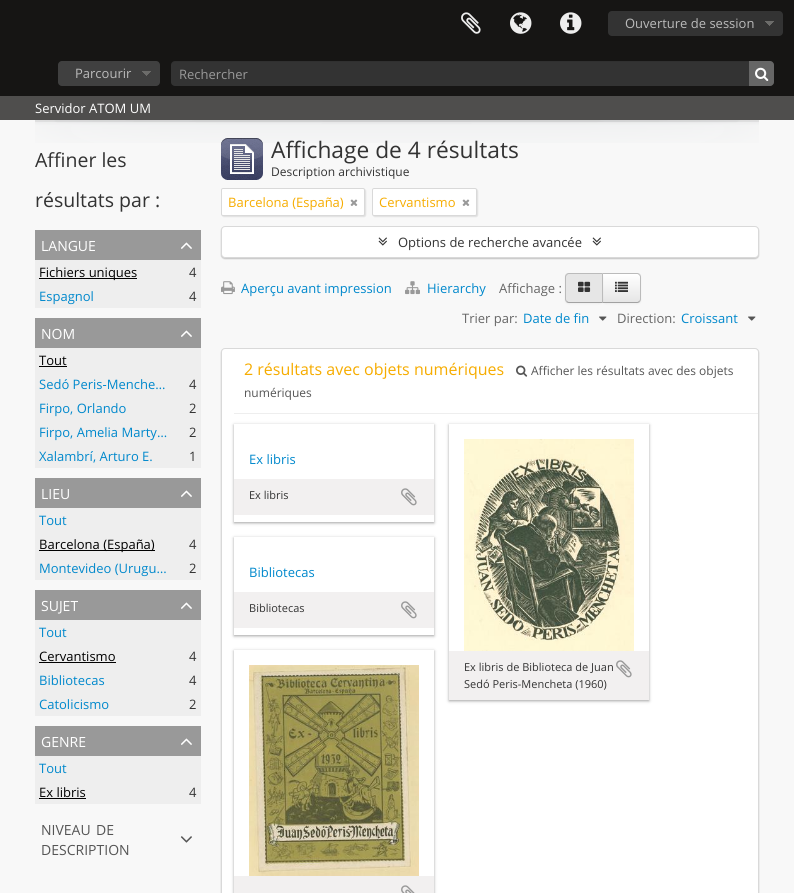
import math
import cairo

surface = cairo.ImageSurface(cairo.FORMAT_RGB24, 794, 893)
c = cairo.Context(surface)
options = cairo.FontOptions()
options.set_hint_metrics(cairo.HINT_METRICS_OFF)
options.set_hint_style(cairo.HINT_STYLE_NONE)
c.set_font_options(options)
c.set_miter_limit(4)
def C(code):
 c.set_source_rgb(*(v / 255 for v in bytes.fromhex(code[-6:])))
def F(family, size, italic, bold):
 c.select_font_face(family, cairo.FONT_SLANT_ITALIC if italic else cairo.FONT_SLANT_NORMAL, cairo.FONT_WEIGHT_BOLD if bold else cairo.FONT_WEIGHT_NORMAL)
 c.set_font_size(size)
def T(x, y, s):
 c.move_to(x, y)
 c.show_text(s)
def R(x, y, w, h):
 c.rectangle(x, y, w, h)
 c.fill()
def Q(x, y, w, h, r):
 c.new_sub_path()
 for i, (u, v) in enumerate([(x + w - r, y + h - r), (x + r, y + h - r), (x + r, y + r), (x + w - r, y + r)]):
  c.arc(u, v, r, i * math.pi / 2, (i + 1) * math.pi / 2)
 c.close_path()
def S(x, y, w, h, r, blur, alpha):
 c.push_group_with_content(cairo.CONTENT_ALPHA)
 c.set_operator(cairo.OPERATOR_SOURCE)
 for i in range(15, -16, -2):
  e = blur * i / 6
  if min(w, h) + 2 * e > 0:
   c.set_source_rgba(0, 0, 0, alpha * math.erfc((i - 1) / 8.5) / 2)
   Q(x - e, y - e, w + 2 * e, h + 2 * e, max(0, min(r + e + blur * .6, min(w, h) / 2 + e)))
   c.fill()
 c.mask(c.pop_group())
def I(path, x, y, w, h):
 c.save()
 c.set_source_surface(cairo.ImageSurface.create_from_png(path), x, y)
 c.rectangle(x, y, w, h)
 c.fill()
 c.restore()
C('f8f8f8')
c.paint()
C('161514')
R(0,0,794,96)
I('1.png',461,12,20,22)
I('2.png',510,12,22,22)
I('3.png',560,12,22,22)
C('333333')
Q(608,11,175,25,4)
c.fill()
I('4.png',765,21,9,5)
F('Open Sans',13,0,0)
C('bbbbbb')
T(625,28,'Ouverture de session')
C('404040')
Q(58,61,102,25,4)
c.fill()
I('5.png',142,71,9,5)
C('bbbbbb')
T(75,78,'Parcourir')
C('333333')
Q(171,61,603,25,4)
c.fill()
c.set_source_rgba(0,0,0,0.07)
c.new_path()
c.move_to(175,62)
c.line_to(770,62)
c.curve_to(772,62,774,64,774,66)
c.line_to(774,65)
c.curve_to(774,63,772,61,770,61)
c.line_to(175,61)
c.curve_to(173,61,171,63,171,65)
c.line_to(171,66)
c.curve_to(171,64,173,62,175,62)
c.close_path()
c.fill()
C('999999')
T(179,79,'Rechercher')
C('666666')
c.new_path()
c.move_to(749,61)
c.line_to(770,61)
c.curve_to(772,61,774,63,774,65)
c.line_to(774,82)
c.curve_to(774,84,772,86,770,86)
c.line_to(749,86)
c.close_path()
c.fill()
I('6.png',755,67,14,14)
C('4f4e4d')
R(0,96,794,24)
C('ffffff')
T(35,113,'Servidor ATOM UM')
I('7.png',35,120,724,23)
F('Open Sans',19.5,0,0)
C('333333')
T(35,167,'Affiner les')
T(35,207,'résultats par :')
C('999999')
R(35,230,166,30)
F('Open Sans',14,0,0)
C('ffffff')
T(41,251,'LANGUE')
I('8.png',181,242,11,7)
C('eeeeee')
R(35,260,166,48)
C('000000')
R(39,278,98,1)
F('Open Sans',13,0,0)
T(39,277,'Fichiers uniques')
C('333333')
T(189,277,'4')
C('0088cc')
T(39,301,'Espagnol')
C('333333')
T(189,301,'4')
C('999999')
R(35,318,166,30)
F('Open Sans',14,0,0)
C('ffffff')
T(41,339,'NOM')
I('8.png',181,330,11,7)
C('eeeeee')
R(35,348,166,120)
F('Open Sans',13,0,0)
C('000000')
T(39,365,'Tout')
R(39,366,28,1)
C('0088cc')
T(39,389,'Sedó Peris-Menche…')
C('333333')
T(189,389,'4')
C('0088cc')
T(39,413,'Firpo, Orlando')
C('333333')
T(189,413,'2')
C('0088cc')
T(39,437,'Firpo, Amelia Marty…')
C('333333')
T(189,437,'2')
C('0088cc')
T(39,461,'Xalambrí, Arturo E.')
C('333333')
T(189,461,'1')
C('999999')
R(35,478,166,30)
F('Open Sans',14,0,0)
C('ffffff')
T(41,499,'LIEU')
I('8.png',181,490,11,7)
C('eeeeee')
R(35,508,166,72)
F('Open Sans',13,0,0)
C('0088cc')
T(39,525,'Tout')
C('000000')
R(39,550,116,1)
T(39,549,'Barcelona (España)')
C('333333')
T(189,549,'4')
C('0088cc')
T(39,573,'Montevideo (Urugu…')
C('333333')
T(189,573,'2')
C('999999')
R(35,590,166,30)
F('Open Sans',14,0,0)
C('ffffff')
T(41,611,'SUJET')
I('8.png',181,602,11,7)
C('eeeeee')
R(35,620,166,96)
F('Open Sans',13,0,0)
C('0088cc')
T(39,637,'Tout')
C('000000')
T(39,661,'Cervantismo')
R(39,662,77,1)
C('333333')
T(189,661,'4')
C('0088cc')
T(39,685,'Bibliotecas')
C('333333')
T(189,685,'4')
C('0088cc')
T(39,709,'Catolicismo')
C('333333')
T(189,709,'2')
C('999999')
R(35,726,166,30)
F('Open Sans',14,0,0)
C('ffffff')
T(41,747,'GENRE')
I('8.png',181,738,11,7)
C('eeeeee')
R(35,756,166,48)
F('Open Sans',13,0,0)
C('0088cc')
T(39,773,'Tout')
C('000000')
T(39,797,'Ex libris')
R(39,798,47,1)
C('333333')
T(189,797,'4')
F('Open Sans',14,0,0)
C('555555')
T(41,835,'NIVEAU')
T(96,835,'DE')
I('9.png',180,836,12,7)
T(41,855,'DESCRIPTION')
I('10.png',221,138,42,42)
F('Open Sans',22.75,0,0)
C('333333')
T(271,158,'Affichage de 4 résultats')
F('Open Sans',12,0,0)
T(271,176,'Description archivistique')
C('000000')
S(222,189,144,28,2,.5,.1)
C('ffffff')
Q(221.5,188.5,143,27,1.5)
c.fill_preserve()
C('d9d9d9')
c.set_line_width(1)
c.stroke()
F('Open Sans',13,0,0)
C('f6ac00')
T(228,207,'Barcelona (España)')
I('11.png',350,199,8,7)
C('000000')
S(373,189,105,28,2,.5,.1)
C('ffffff')
Q(372.5,188.5,104,27,1.5)
c.fill_preserve()
C('d9d9d9')
c.stroke()
C('f6ac00')
T(379,207,'Cervantismo')
I('11.png',462,199,8,7)
C('000000')
S(221,227,538,32,4,.5,.2)
C('ffffff')
Q(221.5,226.5,537,31,3.5)
c.fill_preserve()
C('d9d9d9')
c.stroke()
I('12.png',378,237,9,9)
C('333333')
T(398,247,'Options de recherche avancée')
I('12.png',592,237,9,9)
I('13.png',221,281,14,14)
C('0088cc')
T(241,293,'Aperçu avant impression')
I('14.png',405,281,15,14)
T(427,293,'Hierarchy')
C('666666')
T(499,293,'Affichage :')
C('000000')
S(602,274,39,30,4,1,.05)
c.save()
c.new_path()
c.move_to(602,273)
c.line_to(637,273)
c.curve_to(639,273,641,275,641,277)
c.line_to(641,299)
c.curve_to(641,301,639,303,637,303)
c.line_to(602,303)
c.close_path()
c.clip()
gradient = cairo.LinearGradient(622,274,622,302)
gradient.add_color_stop_rgba(0,1,1,1,1)
gradient.add_color_stop_rgba(1,0.902,0.902,0.902,1)
c.set_source(gradient)
R(603,274,38,28)
c.restore()
C('bbbbbb')
c.new_path()
c.move_to(602,273)
c.line_to(603,274)
c.line_to(637,274)
c.curve_to(638,274,638.5,274.5,639,275)
c.line_to(640,274)
c.curve_to(639,273.5,638,273,637,273)
c.close_path()
c.fill()
c.new_path()
c.move_to(641,299)
c.line_to(641,277)
c.curve_to(641,276,640.5,275,640,274)
c.line_to(639,275)
c.curve_to(639.5,275.5,640,276,640,277)
c.line_to(640,299)
c.curve_to(640,300,639.5,300.5,639,301)
c.line_to(640,302)
c.curve_to(640.5,301,641,300,641,299)
c.close_path()
c.fill()
C('a2a2a2')
c.new_path()
c.move_to(637,303)
c.curve_to(638,303,639,302.5,640,302)
c.line_to(639,301)
c.curve_to(638.5,301.5,638,302,637,302)
c.line_to(603,302)
c.line_to(602,303)
c.close_path()
c.fill()
C('000000')
S(565,274,38,30,4,1,.05)
C('e6e6e6')
c.new_path()
c.move_to(569,273)
c.line_to(603,273)
c.line_to(603,303)
c.line_to(569,303)
c.curve_to(567,303,565,301,565,299)
c.line_to(565,277)
c.curve_to(565,275,567,273,569,273)
c.close_path()
c.fill()
C('bbbbbb')
c.new_path()
c.move_to(569,273)
c.curve_to(568,273,567,273.5,566,274)
c.line_to(567,275)
c.curve_to(567.5,274.5,568,274,569,274)
c.line_to(602,274)
c.line_to(603,273)
c.close_path()
c.fill()
c.new_path()
c.move_to(603,273)
c.line_to(602,274)
c.line_to(602,302)
c.line_to(603,303)
c.close_path()
c.fill()
C('a2a2a2')
c.new_path()
c.move_to(603,303)
c.line_to(602,302)
c.line_to(569,302)
c.curve_to(568,302,567.5,301.5,567,301)
c.line_to(566,302)
c.curve_to(567,302.5,568,303,569,303)
c.close_path()
c.fill()
C('bbbbbb')
c.new_path()
c.move_to(565,277)
c.line_to(565,299)
c.curve_to(565,300,565.5,301,566,302)
c.line_to(567,301)
c.curve_to(566.5,300.5,566,300,566,299)
c.line_to(566,277)
c.curve_to(566,276,566.5,275.5,567,275)
c.line_to(566,274)
c.curve_to(565.5,275,565,276,565,277)
c.close_path()
c.fill()
I('15.png',578,281,13,11)
I('16.png',615,281,13,11)
C('666666')
T(462,323,'Trier par:')
C('0088cc')
T(523,323,'Date de fin')
I('17.png',599,316,8,5)
C('666666')
T(617,323,'Direction:')
C('0088cc')
T(681,323,'Croissant')
I('17.png',748,316,8,5)
C('000000')
S(221,349,538,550,4,.5,.2)
C('ffffff')
Q(221.5,348.5,537,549,3.5)
c.fill_preserve()
C('d9d9d9')
c.stroke()
C('eeeeee')
R(234,413,524,1)
F('Open Sans',16,0,0)
C('f6ac00')
T(244,375,'2 résultats avec objets numériques')
I('18.png',516,365,12,12)
F('Open Sans',12,0,0)
C('555555')
T(531,375,'Afficher les résultats avec des objets')
T(244,397,'numériques')
c.save()
c.set_fill_rule(cairo.FILL_RULE_EVEN_ODD)
c.new_path()
c.move_to(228,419)
c.line_to(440,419)
c.line_to(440,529)
c.line_to(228,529)
c.close_path()
c.move_to(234,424)
c.line_to(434,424)
c.line_to(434,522)
c.line_to(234,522)
c.close_path()
c.clip()
C('191919')
S(234,425,200,98,0,1.5,.4)
c.restore()
F('Open Sans',13,0,0)
C('0088cc')
T(249,464,'Ex libris')
C('f2f0f0')
R(234,479,200,36)
F('Open Sans',11,0,0)
C('333333')
T(249,499,'Ex libris')
I('19.png',401,488,16,18)
c.save()
c.set_fill_rule(cairo.FILL_RULE_EVEN_ODD)
c.new_path()
c.move_to(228,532)
c.line_to(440,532)
c.line_to(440,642)
c.line_to(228,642)
c.close_path()
c.move_to(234,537)
c.line_to(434,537)
c.line_to(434,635)
c.line_to(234,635)
c.close_path()
c.clip()
C('191919')
S(234,538,200,98,0,1.5,.4)
c.restore()
F('Open Sans',13,0,0)
C('0088cc')
T(249,577,'Bibliotecas')
C('f2f0f0')
R(234,592,200,36)
F('Open Sans',11,0,0)
C('333333')
T(249,612,'Bibliotecas')
I('19.png',401,601,16,18)
c.save()
c.set_fill_rule(cairo.FILL_RULE_EVEN_ODD)
c.new_path()
c.move_to(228,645)
c.line_to(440,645)
c.line_to(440,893)
c.line_to(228,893)
c.close_path()
c.move_to(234,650)
c.line_to(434,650)
c.line_to(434,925)
c.line_to(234,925)
c.close_path()
c.clip()
C('191919')
S(234,651,200,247,0,1.5,.4)
c.restore()
I('20.png',249,665,170,211)
C('f2f0f0')
R(234,876,200,17)
I('21.png',401,885,14,8)
c.save()
c.set_fill_rule(cairo.FILL_RULE_EVEN_ODD)
c.new_path()
c.move_to(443,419)
c.line_to(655,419)
c.line_to(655,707)
c.line_to(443,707)
c.close_path()
c.move_to(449,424)
c.line_to(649,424)
c.line_to(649,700)
c.line_to(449,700)
c.close_path()
c.clip()
C('191919')
S(449,425,200,276,0,1.5,.4)
c.restore()
I('22.png',464,439,170,212)
R(449,651,200,49)
C('333333')
T(464,671,'Ex libris de Biblioteca de Juan')
I('19.png',616,660,16,18)
T(464,688,'Sedó Peris-Mencheta (1960)')
surface.write_to_png('o.png')
